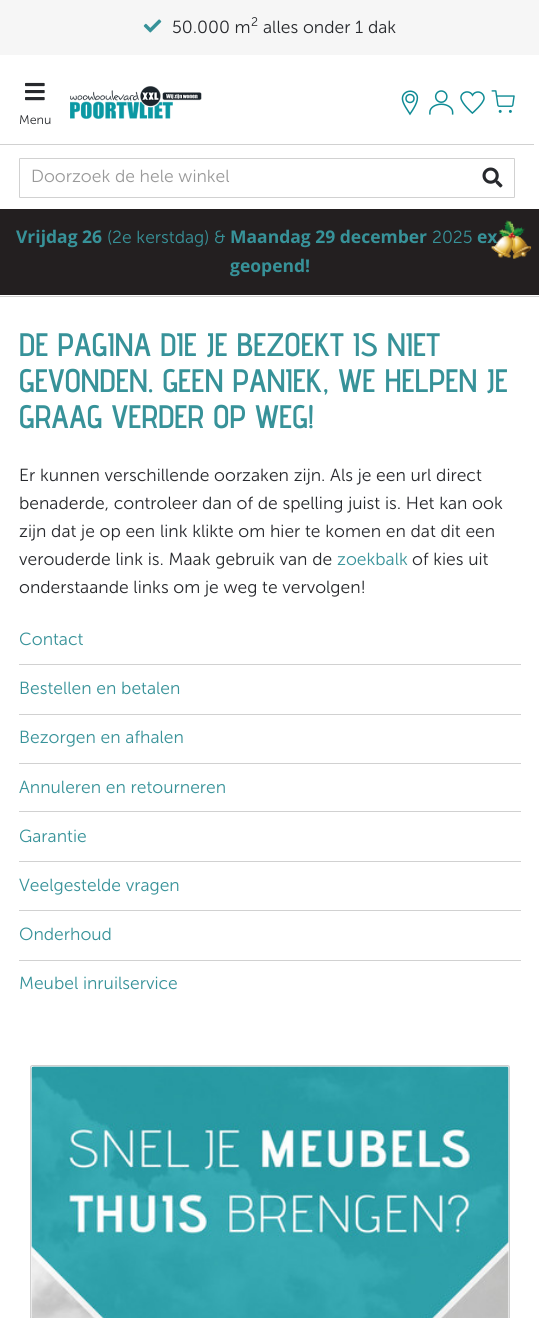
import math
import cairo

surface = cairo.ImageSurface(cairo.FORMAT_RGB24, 539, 1318)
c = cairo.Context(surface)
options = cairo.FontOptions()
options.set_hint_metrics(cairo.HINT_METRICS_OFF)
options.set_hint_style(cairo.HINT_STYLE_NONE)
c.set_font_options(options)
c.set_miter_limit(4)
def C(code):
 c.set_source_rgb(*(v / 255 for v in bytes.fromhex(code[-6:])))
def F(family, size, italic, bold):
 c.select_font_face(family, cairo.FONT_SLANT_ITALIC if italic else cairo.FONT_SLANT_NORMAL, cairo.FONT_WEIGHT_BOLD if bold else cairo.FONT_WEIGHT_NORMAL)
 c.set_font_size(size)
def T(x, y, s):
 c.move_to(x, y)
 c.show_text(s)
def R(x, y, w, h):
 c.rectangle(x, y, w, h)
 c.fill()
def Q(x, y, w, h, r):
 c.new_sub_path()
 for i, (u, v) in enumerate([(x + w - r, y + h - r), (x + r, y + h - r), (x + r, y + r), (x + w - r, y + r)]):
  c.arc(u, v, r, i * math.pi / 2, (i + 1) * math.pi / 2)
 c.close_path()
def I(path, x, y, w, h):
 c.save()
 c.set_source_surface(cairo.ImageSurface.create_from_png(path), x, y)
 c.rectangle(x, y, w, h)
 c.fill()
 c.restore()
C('ffffff')
c.paint()
C('d1d1d1')
R(0,296,539,1)
C('f6f6f6')
R(0,0,539,55)
I('1.png',143,19,19,14)
F('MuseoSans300',17.5,0,0)
C('27292d')
T(172,33,'50.000 m')
F('MuseoSans300',12.5,0,0)
T(251,26,'2')
F('MuseoSans300',17.5,0,0)
T(263,33,'alles onder 1 dak')
I('2.png',70,86,132,33)
c.new_path()
c.move_to(417,95.5)
c.curve_to(413.5,88,401.5,91,402.5,99.5)
c.curve_to(403,104,407.5,110,410,114)
c.curve_to(413,109.5,419,101,417,95.5)
c.close_path()
C('0f8b95')
c.set_line_width(1.5)
c.stroke()
c.arc(410,98.5,4,0,2 * math.pi)
c.stroke()
I('3.png',429,90,25,25)
I('4.png',460,91,25,23)
I('5.png',491,90,24,23)
I('6.png',25,82,20,19)
F('MuseoSans300',12.5,0,0)
C('27292d')
T(19,124,'Menu')
C('d1d1d1')
R(0,144,534,1)
Q(19.5,158.5,495,39,.5)
c.set_line_width(1)
c.stroke()
F('MuseoSans300',17.5,0,0)
C('999999')
T(31,182,'Doorzoek de hele winkel')
I('7.png',482,167,21,21)
C('231f20')
R(0,209,539,86)
F('Open Sans',17.5,0,1)
C('379299')
T(16,243,'Vrijdag 26')
F('MuseoSans300',17.5,0,0)
T(107,243,'(2e kerstdag) &')
F('Open Sans',17.5,0,1)
T(230,243,'Maandag 29 december')
F('MuseoSans300',17.5,0,0)
T(432,243,'2025')
F('Open Sans',17.5,0,1)
T(477,243,'ex')
I('8.png',491,220,41,39)
T(230,272,'geopend!')
F('Advent Pro SemiBold',32.5,0,0)
T(19,356,'DE PAGINA DIE JE BEZOEKT IS NIET')
T(19,392,'GEVONDEN. GEEN PANIEK, WE HELPEN JE')
T(19,428,'GRAAG VERDER OP WEG!')
F('MuseoSans300',17.5,0,0)
C('27292d')
T(19,481,'Er kunnen verschillende oorzaken zijn. Als je een url direct')
T(19,509,'benaderde, controleer dan of de spelling juist is. Het kan ook')
T(19,537,'zijn dat je op een link klikte om hier te komen en dat dit een')
T(19,565,'verouderde link is. Maak gebruik van de')
C('379299')
T(337,565,'zoekbalk')
C('27292d')
T(412,565,'of kies uit')
T(19,593,'onderstaande links om je weg te vervolgen!')
C('379299')
T(19,645,'Contact')
C('d1d1d1')
R(19,664,502,1)
C('379299')
T(19,694,'Bestellen en betalen')
C('d1d1d1')
R(19,714,502,1)
C('379299')
T(19,743,'Bezorgen en afhalen')
C('d1d1d1')
R(19,763,502,1)
C('379299')
T(19,793,'Annuleren en retourneren')
C('d1d1d1')
R(19,811,502,1)
C('379299')
T(19,842,'Garantie')
C('d1d1d1')
R(19,861,502,1)
C('379299')
T(19,891,'Veelgestelde vragen')
C('d1d1d1')
R(19,910,502,1)
C('379299')
T(19,940,'Onderhoud')
C('d1d1d1')
R(19,960,502,1)
C('379299')
T(19,989,'Meubel inruilservice')
I('9.png',30,1065,480,253)
surface.write_to_png('o.png')
